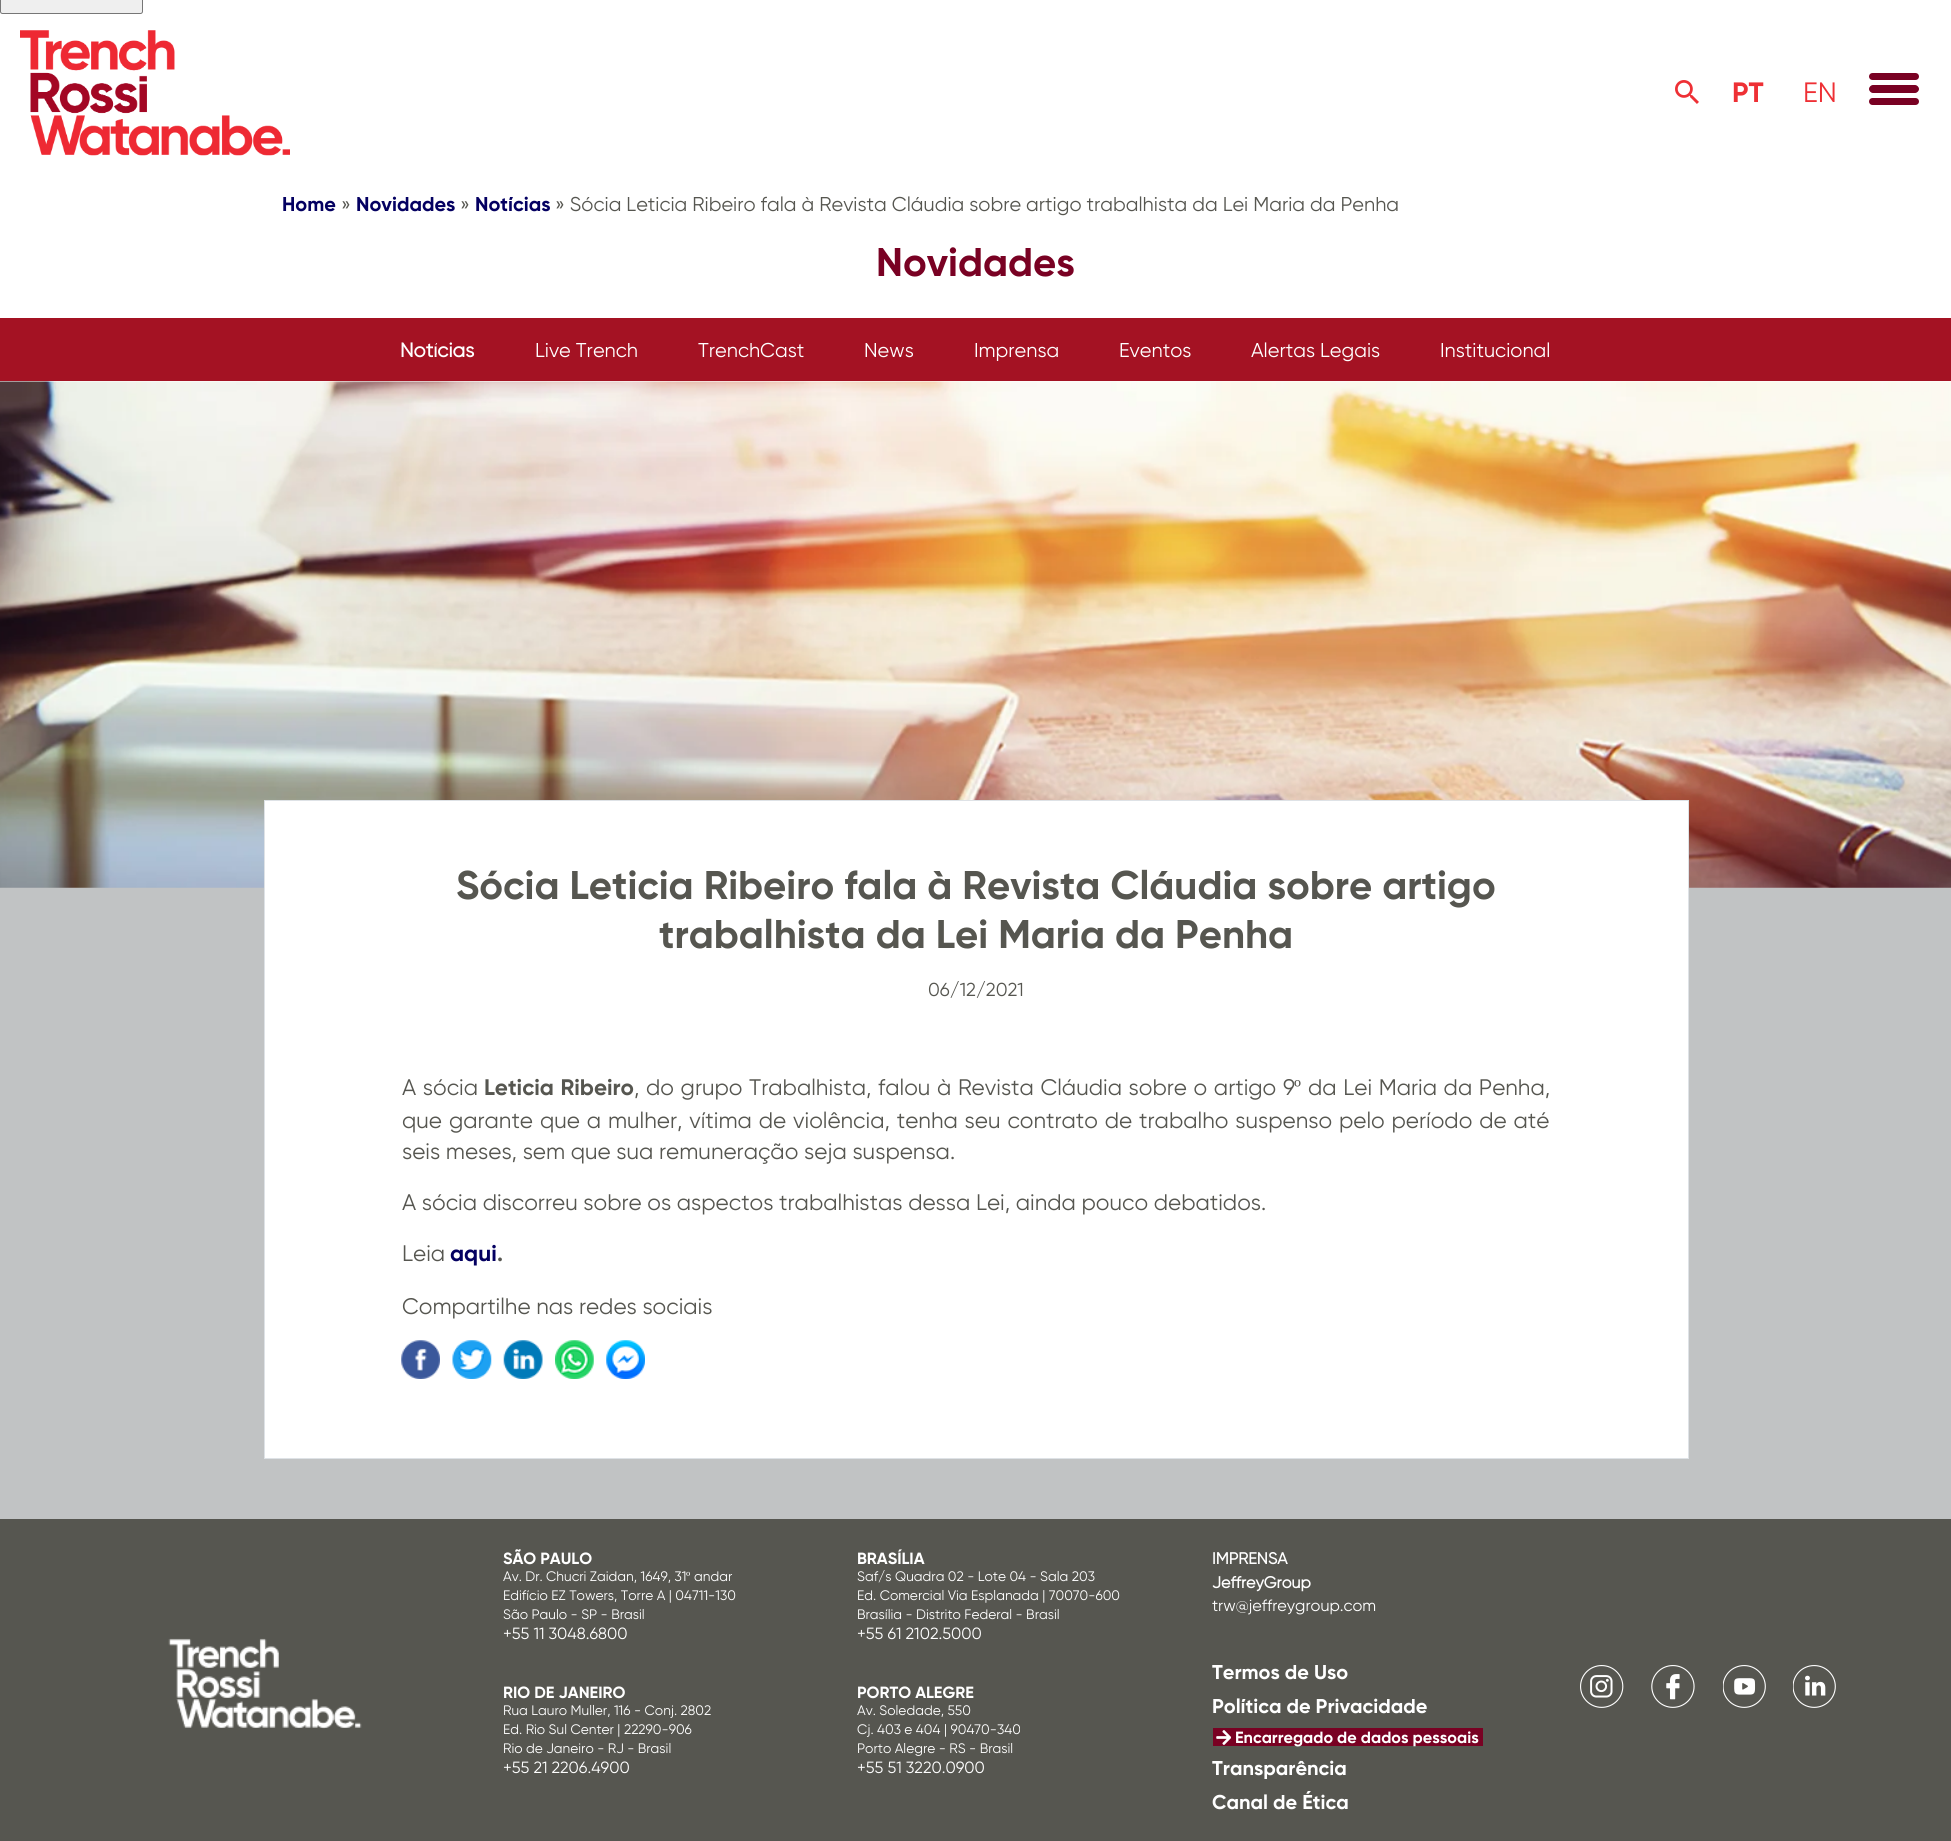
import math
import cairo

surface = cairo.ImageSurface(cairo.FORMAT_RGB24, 1951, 1841)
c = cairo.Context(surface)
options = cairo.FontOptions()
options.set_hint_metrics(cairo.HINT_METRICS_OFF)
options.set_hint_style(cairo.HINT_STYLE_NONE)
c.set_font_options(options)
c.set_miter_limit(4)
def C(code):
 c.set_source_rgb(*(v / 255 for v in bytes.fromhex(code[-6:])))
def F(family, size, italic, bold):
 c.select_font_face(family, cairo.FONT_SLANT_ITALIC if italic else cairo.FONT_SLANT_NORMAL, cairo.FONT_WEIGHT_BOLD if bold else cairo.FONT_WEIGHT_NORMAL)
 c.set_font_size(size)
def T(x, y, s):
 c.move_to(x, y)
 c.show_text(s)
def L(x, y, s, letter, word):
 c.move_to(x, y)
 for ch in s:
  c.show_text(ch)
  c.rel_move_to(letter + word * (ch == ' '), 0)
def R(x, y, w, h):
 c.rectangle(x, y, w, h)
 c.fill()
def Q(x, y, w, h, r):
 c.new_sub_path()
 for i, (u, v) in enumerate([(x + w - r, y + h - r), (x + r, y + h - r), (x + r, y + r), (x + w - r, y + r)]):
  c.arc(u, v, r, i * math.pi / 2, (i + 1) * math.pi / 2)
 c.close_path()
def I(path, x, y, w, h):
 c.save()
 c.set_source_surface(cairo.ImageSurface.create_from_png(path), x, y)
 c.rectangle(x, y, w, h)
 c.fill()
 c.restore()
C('ffffff')
c.paint()
C('efefef')
Q(.5,-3.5,142,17,2)
c.fill_preserve()
C('767676')
c.set_line_width(1)
c.stroke()
I('1.png',20,30,270,126)
I('2.png',1675,80,24,24)
F('Gilroy',28,0,1)
C('ee3035')
T(1732,102,'PT')
F('Gilroy',28,0,0)
T(1803,102,'EN')
C('790123')
c.new_path()
c.move_to(1873,85)
c.line_to(1894,85)
c.line_to(1894,93)
c.line_to(1873,93)
c.curve_to(1871,93,1869,91,1869,89)
c.curve_to(1869,87,1871,85,1873,85)
c.close_path()
c.fill()
c.new_path()
c.move_to(1872.5,73)
c.line_to(1894,73)
c.line_to(1894,80)
c.line_to(1872.5,80)
c.curve_to(1870.5,80,1869,78.5,1869,76.5)
c.curve_to(1869,74.5,1870.5,73,1872.5,73)
c.close_path()
c.fill()
c.new_path()
c.move_to(1872.5,98)
c.line_to(1894,98)
c.line_to(1894,105)
c.line_to(1872.5,105)
c.curve_to(1870.5,105,1869,103.5,1869,101.5)
c.curve_to(1869,99.5,1870.5,98,1872.5,98)
c.close_path()
c.fill()
c.new_path()
c.move_to(1894,85)
c.line_to(1915,85)
c.curve_to(1917,85,1919,87,1919,89)
c.curve_to(1919,91,1917,93,1915,93)
c.line_to(1894,93)
c.close_path()
c.fill()
c.new_path()
c.move_to(1894,73)
c.line_to(1915.5,73)
c.curve_to(1917.5,73,1919,74.5,1919,76.5)
c.curve_to(1919,78.5,1917.5,80,1915.5,80)
c.line_to(1894,80)
c.close_path()
c.fill()
c.new_path()
c.move_to(1894,98)
c.line_to(1915.5,98)
c.curve_to(1917.5,98,1919,99.5,1919,101.5)
c.curve_to(1919,103.5,1917.5,105,1915.5,105)
c.line_to(1894,105)
c.close_path()
c.fill()
F('Gilroy',20,0,1)
C('040061')
T(282,211,'Home')
F('Gilroy',20,0,0)
C('565650')
T(341,211,'»')
F('Gilroy',20,0,1)
C('040061')
T(356,211,'Novidades')
F('Gilroy',20,0,0)
C('565650')
T(460,211,'»')
F('Gilroy',20,0,1)
C('040061')
T(475,211,'Notícias')
F('Gilroy',20,0,0)
C('565650')
T(555,211,'» Sócia Leticia Ribeiro fala à Revista Cláudia sobre artigo trabalhista da Lei Maria da Penha')
F('Gilroy',40,0,1)
C('790123')
T(876,276,'Novidades')
C('a41223')
R(0,318,1951,63)
F('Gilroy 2',20,0,1)
C('ffffff')
T(400,357,'Notícias')
F('Gilroy',20,0,0)
T(535,357,'Live Trench')
T(698,357,'TrenchCast')
T(864,357,'News')
T(974,357,'Imprensa')
T(1119,357,'Eventos')
T(1251,357,'Alertas Legais')
T(1440,357,'Institucional')
C('c1c3c4')
R(0,887,1951,632)
I('3.png',0,381,1951,507)
C('ffffff')
c.rectangle(264.5,800.5,1424,658)
c.fill_preserve()
C('dee2e6')
c.stroke()
F('Gilroy',40,0,1)
C('565650')
T(456,899,'Sócia Leticia Ribeiro fala à Revista Cláudia sobre artigo')
T(659,948,'trabalhista da Lei Maria da Penha')
F('Gilroy',18.75,0,0)
T(928,996,'06/12/2021')
F('Gilroy',22.5,0,0)
L(402,1095,'A sócia',0,1)
F('Gilroy',22.5,0,1)
L(484,1095,'Leticia Ribeiro',0,1)
F('Gilroy',22.5,0,0)
L(634,1095,', do grupo Trabalhista,',0,1)
L(878,1095,'falou à Revista Cláudia sobre o artigo 9',0,1)
F('Liberation Serif',22.5,0,0)
T(1294,1095,'º')
F('Gilroy',22.5,0,0)
L(1308,1095,'da Lei Maria da Penha,',0,1)
L(402,1128,'que garante que a mulher, vítima de violência, tenha seu contrato de trabalho suspenso pelo período de até',0,1.25)
T(402,1159,'seis meses, sem que sua remuneração seja suspensa.')
T(402,1210,'A sócia discorreu sobre os aspectos trabalhistas dessa Lei, ainda pouco debatidos.')
T(402,1261,'Leia')
F('Gilroy',22.5,0,1)
C('040061')
T(450,1261,'aqui')
C('565650')
T(497,1261,'.')
F('Gilroy',22.5,0,0)
T(402,1314,'Compartilhe nas redes sociais')
I('4.png',401,1340,39,39)
I('5.png',452,1340,40,39)
I('6.png',503,1340,40,39)
I('7.png',555,1340,39,39)
I('8.png',606,1340,39,39)
R(0,1519,1951,322)
I('9.png',168,1638,194,91)
F('Gilroy',16.25,0,1)
C('ffffff')
T(503,1564,'SÃO PAULO')
F('Gilroy',13.75,0,0)
T(503,1581,'Av. Dr. Chucri Zaidan, 1649, 31')
F('Liberation Serif',13.75,0,0)
T(686,1581,'º')
F('Gilroy',13.75,0,0)
T(694,1581,'andar')
T(503,1600,'Edifício EZ Towers, Torre A | 04711-130')
T(503,1619,'São Paulo - SP - Brasil')
F('Gilroy',16.25,0,0)
T(503,1639,'+55 11 3048.6800')
F('Gilroy',16.25,0,1)
T(503,1698,'RIO DE JANEIRO')
F('Gilroy',13.75,0,0)
T(503,1715,'Rua Lauro Muller, 116 - Conj. 2802')
T(503,1734,'Ed. Rio Sul Center | 22290-906')
T(503,1753,'Rio de Janeiro - RJ - Brasil')
F('Gilroy',16.25,0,0)
T(503,1773,'+55 21 2206.4900')
F('Gilroy',16.25,0,1)
T(857,1564,'BRASÍLIA')
F('Gilroy',13.75,0,0)
T(857,1581,'Saf/s Quadra 02 - Lote 04 - Sala 203')
T(857,1600,'Ed. Comercial Via Esplanada | 70070-600')
T(857,1619,'Brasília - Distrito Federal - Brasil')
F('Gilroy',16.25,0,0)
T(857,1639,'+55 61 2102.5000')
F('Gilroy',16.25,0,1)
T(857,1698,'PORTO ALEGRE')
F('Gilroy',13.75,0,0)
T(857,1715,'Av. Soledade, 550')
T(857,1734,'Cj. 403 e 404 | 90470-340')
T(857,1753,'Porto Alegre - RS - Brasil')
F('Gilroy',16.25,0,0)
T(857,1773,'+55 51 3220.0900')
F('Gilroy 2',16.25,0,1)
T(1212,1564,'IMPRENSA')
T(1212,1588,'JeffreyGroup')
F('Gilroy',16.25,0,0)
T(1212,1611,'trw@jeffreygroup.com')
F('Gilroy',20,0,1)
T(1212,1679,'Termos de Uso')
T(1212,1713,'Política de Privacidade')
C('790123')
R(1213,1728,270,18)
I('10.png',1216,1730,15,15)
F('Gilroy',16.25,0,1)
C('ffffff')
T(1235,1743,'Encarregado de dados pessoais')
F('Gilroy',20,0,1)
T(1212,1775,'Transparência')
T(1212,1809,'Canal de Ética')
I('11.png',1580,1665,44,43)
I('12.png',1651,1665,44,43)
I('13.png',1723,1665,43,43)
I('14.png',1793,1665,43,43)
surface.write_to_png('o.png')
